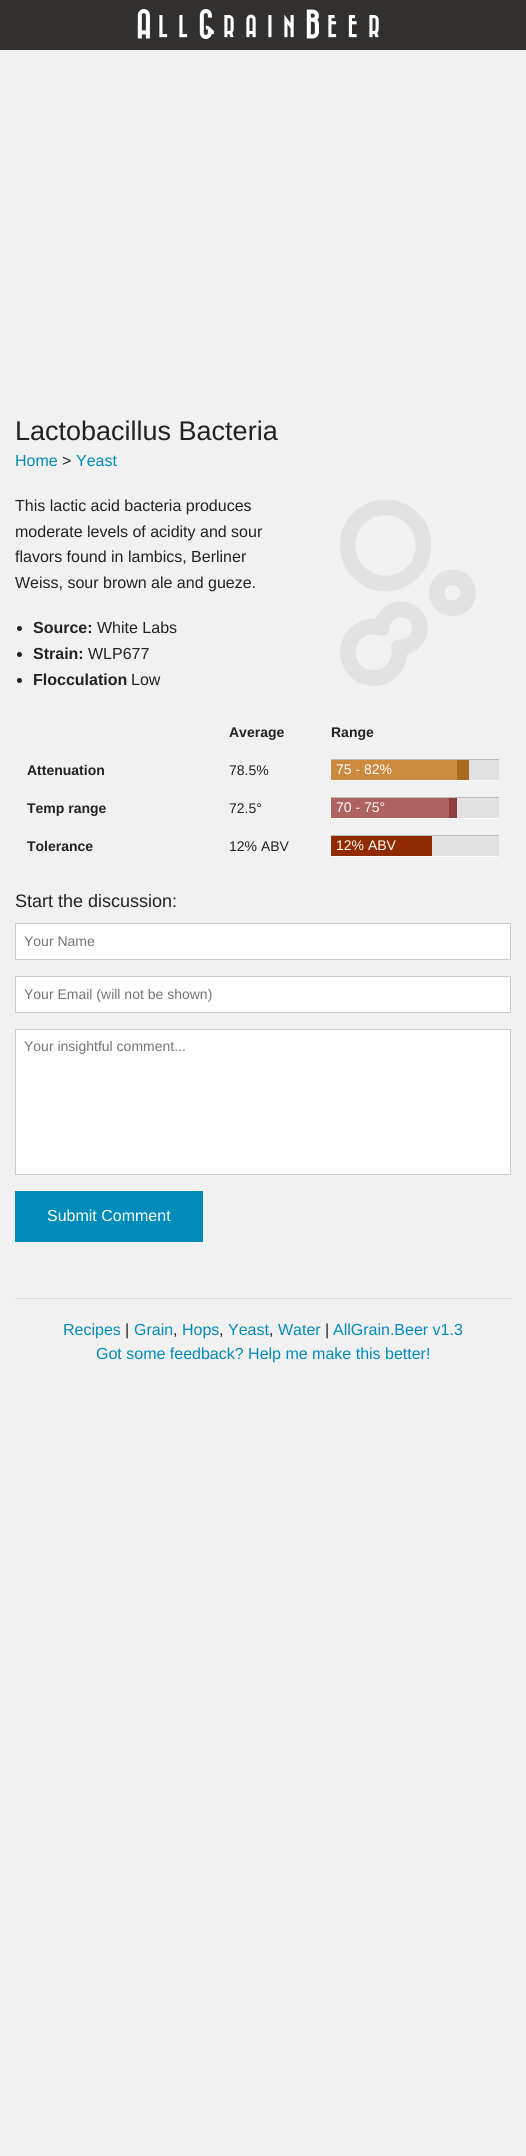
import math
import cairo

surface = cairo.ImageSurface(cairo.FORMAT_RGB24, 526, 2156)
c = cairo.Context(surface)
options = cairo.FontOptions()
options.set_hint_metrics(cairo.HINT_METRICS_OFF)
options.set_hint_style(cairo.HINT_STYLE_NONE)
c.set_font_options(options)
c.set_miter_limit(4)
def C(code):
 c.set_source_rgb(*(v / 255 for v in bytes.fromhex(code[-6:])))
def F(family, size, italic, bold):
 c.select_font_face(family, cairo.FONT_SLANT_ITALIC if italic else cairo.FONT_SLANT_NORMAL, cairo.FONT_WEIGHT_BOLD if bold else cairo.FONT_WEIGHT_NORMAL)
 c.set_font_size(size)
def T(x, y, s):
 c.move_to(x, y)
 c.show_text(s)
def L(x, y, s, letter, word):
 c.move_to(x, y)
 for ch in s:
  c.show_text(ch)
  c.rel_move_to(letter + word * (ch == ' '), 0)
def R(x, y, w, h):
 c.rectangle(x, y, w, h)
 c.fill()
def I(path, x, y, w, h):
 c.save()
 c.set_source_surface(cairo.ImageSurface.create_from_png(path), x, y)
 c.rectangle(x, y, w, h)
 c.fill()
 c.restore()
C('f1f1f1')
c.paint()
C('31302f')
R(0,0,526,50)
F('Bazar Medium',30,0,0)
C('ffffff')
L(136,33,'A',10,0)
F('Bazar Medium',23,0,0)
L(158,33,'LL',10,0)
F('Bazar Medium',30,0,0)
L(198,33,'G',10,0)
F('Bazar Medium',23,0,0)
L(223,33,'RAIN',10,0)
F('Bazar Medium',30,0,0)
L(305,33,'B',10,0)
F('Bazar Medium',23,0,0)
L(327,33,'EER',10,0)
F('Liberation Sans',27,0,0)
C('222222')
T(15,440,'Lactobacillus Bacteria')
F('Liberation Sans',16,0,0)
C('008cba')
T(15,466,'Home')
C('222222')
T(62,466,'>')
C('008cba')
T(76,466,'Yeast')
C('222222')
T(15,511,'This lactic acid bacteria produces')
T(15,537,'moderate levels of acidity and sour')
T(15,562,'flavors found in lambics, Berliner')
T(15,588,'Weiss, sour brown ale and gueze.')
I('1.png',340,499,136,187)
c.arc(19.5,628.5,2.5,0,2 * math.pi)
c.fill()
F('Liberation Sans',16,0,1)
T(33,633,'Source:')
F('Liberation Sans',16,0,0)
T(97,633,'White Labs')
c.new_path()
c.arc(19.5,654.5,2.5,0,2 * math.pi)
c.fill()
F('Liberation Sans',16,0,1)
T(33,659,'Strain:')
F('Liberation Sans',16,0,0)
T(88,659,'WLP677')
c.new_path()
c.arc(19.5,680.5,2.5,0,2 * math.pi)
c.fill()
F('Liberation Sans',16,0,1)
T(33,685,'Flocculation')
F('Liberation Sans',16,0,0)
T(131,685,'Low')
F('Liberation Sans',14,0,1)
T(229,737,'Average')
T(331,737,'Range')
T(27,775,'Attenuation')
F('Liberation Sans',14,0,0)
T(229,775,'78.5%')
C('bbbbbb')
R(331,759,168,1)
C('ffffff')
c.new_path()
c.move_to(330,761)
c.line_to(330,781)
c.line_to(498,781)
c.line_to(498,780)
c.line_to(331,780)
c.line_to(331,761)
c.close_path()
c.fill()
C('e2e2e2')
R(469,760,30,20)
C('cc8a3f')
R(331,760,126,20)
C('ffffff')
T(336,774,'75 - 82%')
C('aa681d')
R(457,760,12,20)
F('Liberation Sans',14,0,1)
C('222222')
T(27,813,'Temp range')
F('Liberation Sans',14,0,0)
T(229,813,'72.5°')
C('bbbbbb')
R(331,797,168,1)
C('ffffff')
c.new_path()
c.move_to(330,799)
c.line_to(330,819)
c.line_to(498,819)
c.line_to(498,818)
c.line_to(331,818)
c.line_to(331,799)
c.close_path()
c.fill()
C('e2e2e2')
R(457,798,42,20)
C('af6260')
R(331,798,118,20)
C('ffffff')
T(336,812,'70 - 75°')
C('8d403e')
R(449,798,8,20)
F('Liberation Sans',14,0,1)
C('222222')
T(27,851,'Tolerance')
F('Liberation Sans',14,0,0)
T(229,851,'12% ABV')
C('bbbbbb')
R(331,835,168,1)
C('ffffff')
c.new_path()
c.move_to(330,837)
c.line_to(330,857)
c.line_to(498,857)
c.line_to(498,856)
c.line_to(331,856)
c.line_to(331,837)
c.close_path()
c.fill()
C('e2e2e2')
R(432,836,67,20)
C('902a00')
R(331,836,101,20)
C('ffffff')
T(336,850,'12% ABV')
F('Liberation Sans',18,0,0)
C('222222')
T(15,907,'Start the discussion:')
C('ffffff')
c.rectangle(15.5,923.5,495,36)
c.fill_preserve()
C('cccccc')
c.set_line_width(1)
c.stroke()
F('Liberation Sans',14,0,0)
C('757575')
T(24,946,'Your Name')
C('ffffff')
c.rectangle(15.5,976.5,495,36)
c.fill_preserve()
C('cccccc')
c.stroke()
C('757575')
T(24,999,'Your Email (will not be shown)')
C('ffffff')
c.rectangle(15.5,1029.5,495,145)
c.fill_preserve()
C('cccccc')
c.stroke()
C('757575')
T(24,1051,'Your insightful comment...')
C('008cba')
R(15,1191,188,51)
F('Liberation Sans',16,0,0)
C('ffffff')
T(47,1221,'Submit Comment')
C('dddddd')
R(15,1298,496,1)
C('008cba')
T(63,1335,'Recipes')
C('222222')
T(125,1335,'|')
C('008cba')
T(134,1335,'Grain')
C('222222')
T(173,1335,',')
C('008cba')
T(182,1335,'Hops')
C('222222')
T(219,1335,',')
C('008cba')
T(228,1335,'Yeast')
C('222222')
T(269,1335,',')
C('008cba')
T(278,1335,'Water')
C('222222')
T(325,1335,'|')
C('008cba')
T(333,1335,'AllGrain.Beer v1.3')
T(96,1359,'Got some feedback? Help me make this better!')
surface.write_to_png('o.png')
